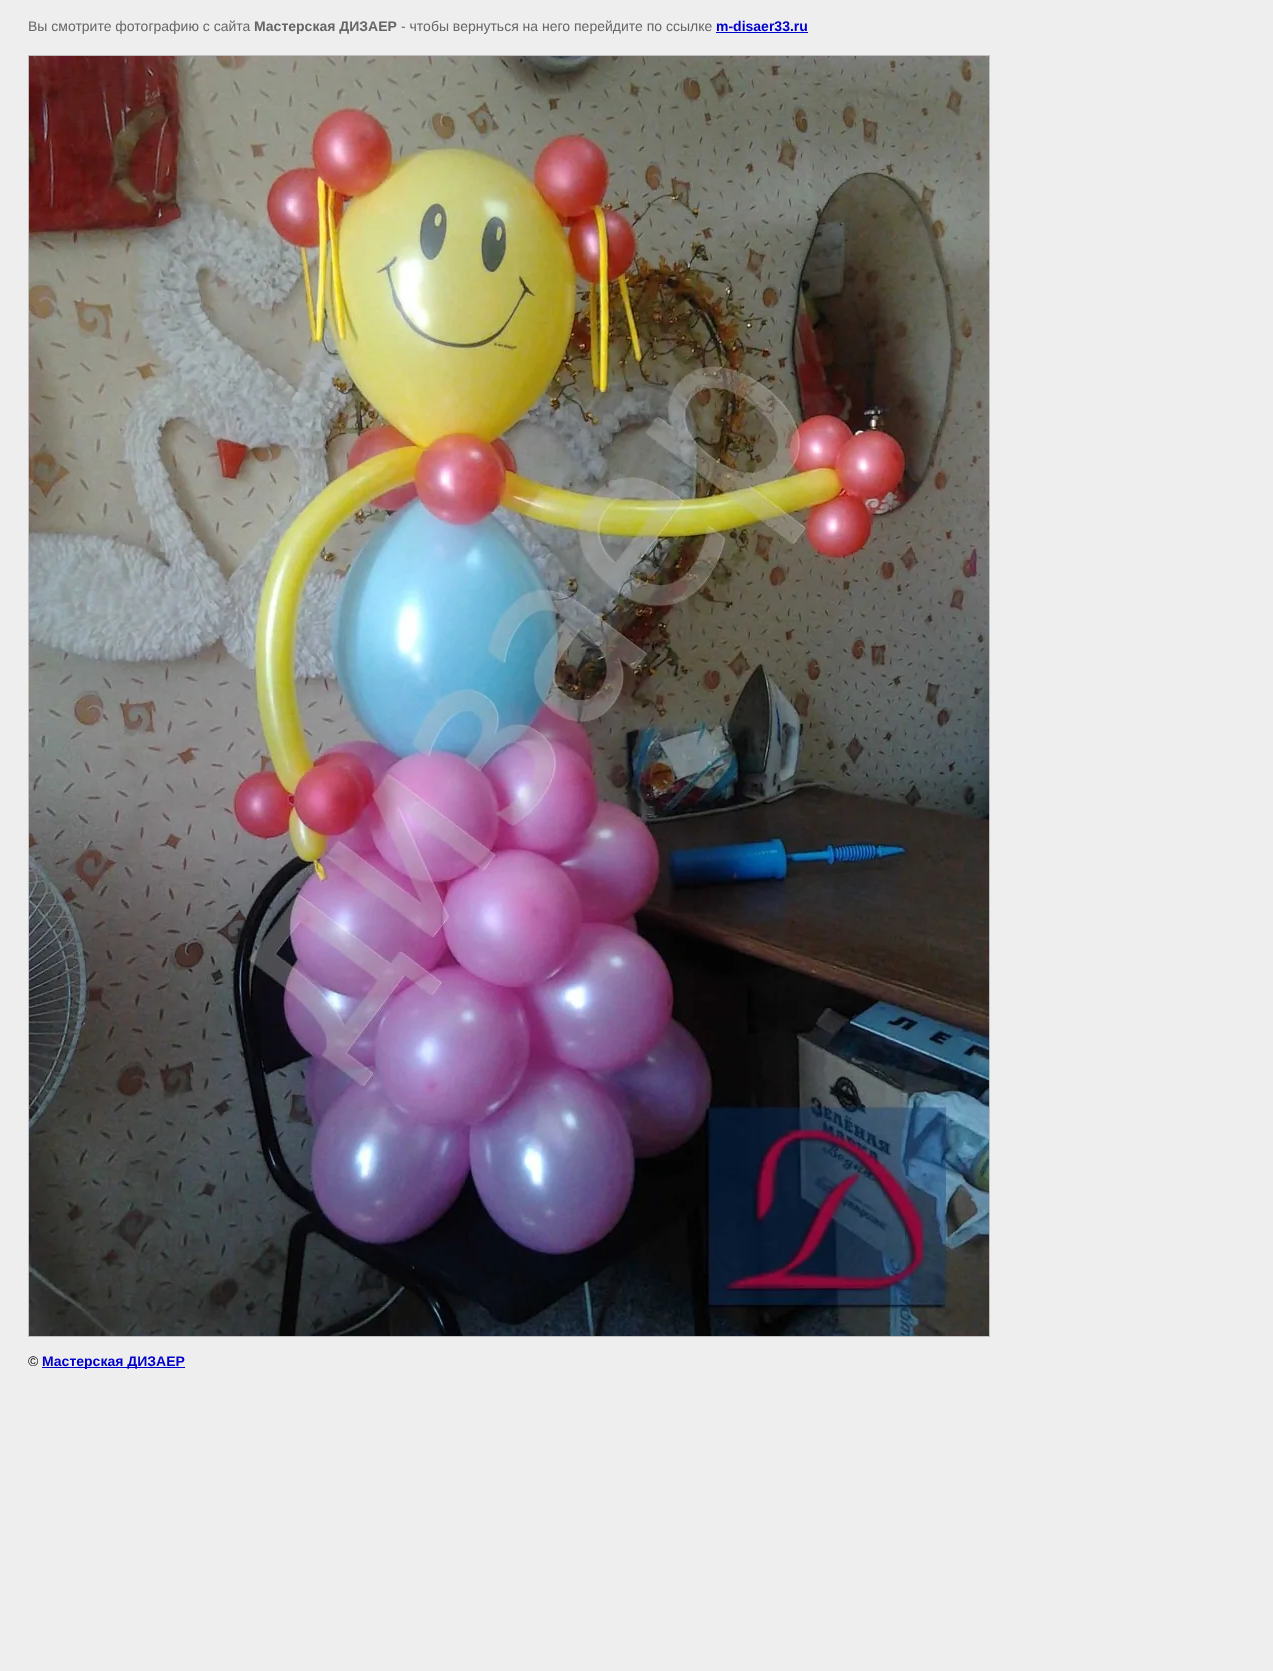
<!DOCTYPE html>
<meta charset="utf-8">
<style>body { margin: 0 } canvas { display: block }</style>
<canvas id="canvas" width="1273" height="1671"></canvas>
<img id="img1" src="img_01.png" hidden>
<script>
window.onload = function () {
	const canvas = document.getElementById("canvas");
	const ctx = canvas.getContext("2d");
	ctx.miterLimit = 4;
	ctx.fontKerning = "normal";
	function txt(s, x, y) {
		ctx.fillText(s, x, y);
	}
	function fill(x, y, w, h) {
		ctx.fillRect(x, y, w, h);
	}
	function img(id, x, y, w, h) {
		ctx.drawImage(document.getElementById(id), x, y, w, h);
	}

	ctx.fillStyle = "#EEEEEE";
	fill(0, 0, 1273, 1671);
	ctx.fillStyle = "#0000CC";
	fill(716, 32, 92, 1);
	ctx.strokeStyle = "#C0C0C0";
	ctx.strokeRect(28.5, 55.5, 961, 1281);
	img("img1", 29, 56, 960, 1280);
	fill(42, 1367, 143, 1);
	ctx.font = "14px Liberation Sans";
	ctx.fillStyle = "#666666";
	txt("Вы смотрите фотографию с сайта", 28, 31);
	ctx.font = "bold 14px Liberation Sans";
	txt("Мастерская ДИЗАЕР", 254, 31);
	ctx.font = "14px Liberation Sans";
	txt("- чтобы вернуться на него перейдите по ссылке", 401, 31);
	ctx.font = "bold 14px Liberation Sans";
	ctx.fillStyle = "#0000CC";
	txt("m-disaer33.ru", 716, 31);
	ctx.font = "14px Liberation Sans";
	ctx.fillStyle = "#000000";
	txt("©", 28, 1366);
	ctx.font = "bold 14px Liberation Sans";
	ctx.fillStyle = "#0000CC";
	txt("Мастерская ДИЗАЕР", 42, 1366);
};
</script>
